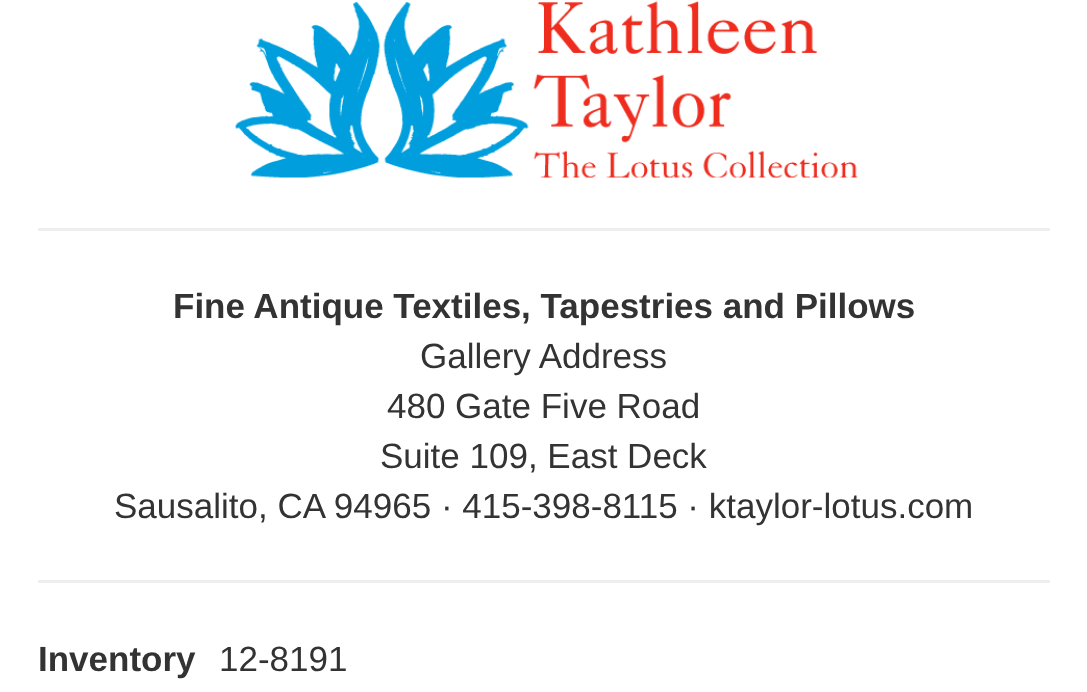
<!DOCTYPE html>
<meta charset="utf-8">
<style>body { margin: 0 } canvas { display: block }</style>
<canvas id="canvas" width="1087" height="692"></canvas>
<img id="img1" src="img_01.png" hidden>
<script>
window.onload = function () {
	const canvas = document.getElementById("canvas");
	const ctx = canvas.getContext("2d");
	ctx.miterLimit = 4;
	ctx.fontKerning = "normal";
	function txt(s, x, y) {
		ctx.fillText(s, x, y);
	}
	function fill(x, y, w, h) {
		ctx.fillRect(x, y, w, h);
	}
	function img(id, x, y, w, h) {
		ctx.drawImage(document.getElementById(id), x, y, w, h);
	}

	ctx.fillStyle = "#FFFFFF";
	fill(0, 0, 1087, 692);
	img("img1", 235, 1, 623, 177);
	ctx.fillStyle = "#EEEEEE";
	fill(38, 228, 1012, 3);
	fill(38, 580, 1012, 3);
	ctx.font = "bold 35px Liberation Sans";
	ctx.fillStyle = "#333333";
	txt("Fine Antique Textiles, Tapestries and Pillows", 173, 318);
	ctx.font = "35px Liberation Sans";
	txt("Gallery Address", 420, 368);
	txt("480 Gate Five Road", 387, 418);
	txt("Suite 109, East Deck", 380, 468);
	txt("Sausalito, CA 94965 · 415-398-8115 · ktaylor-lotus.com", 114, 518);
	ctx.font = "bold 35px Liberation Sans";
	txt("Inventory", 38, 671);
	ctx.font = "35px Liberation Sans";
	txt("12-8191", 219, 671);
};
</script>
